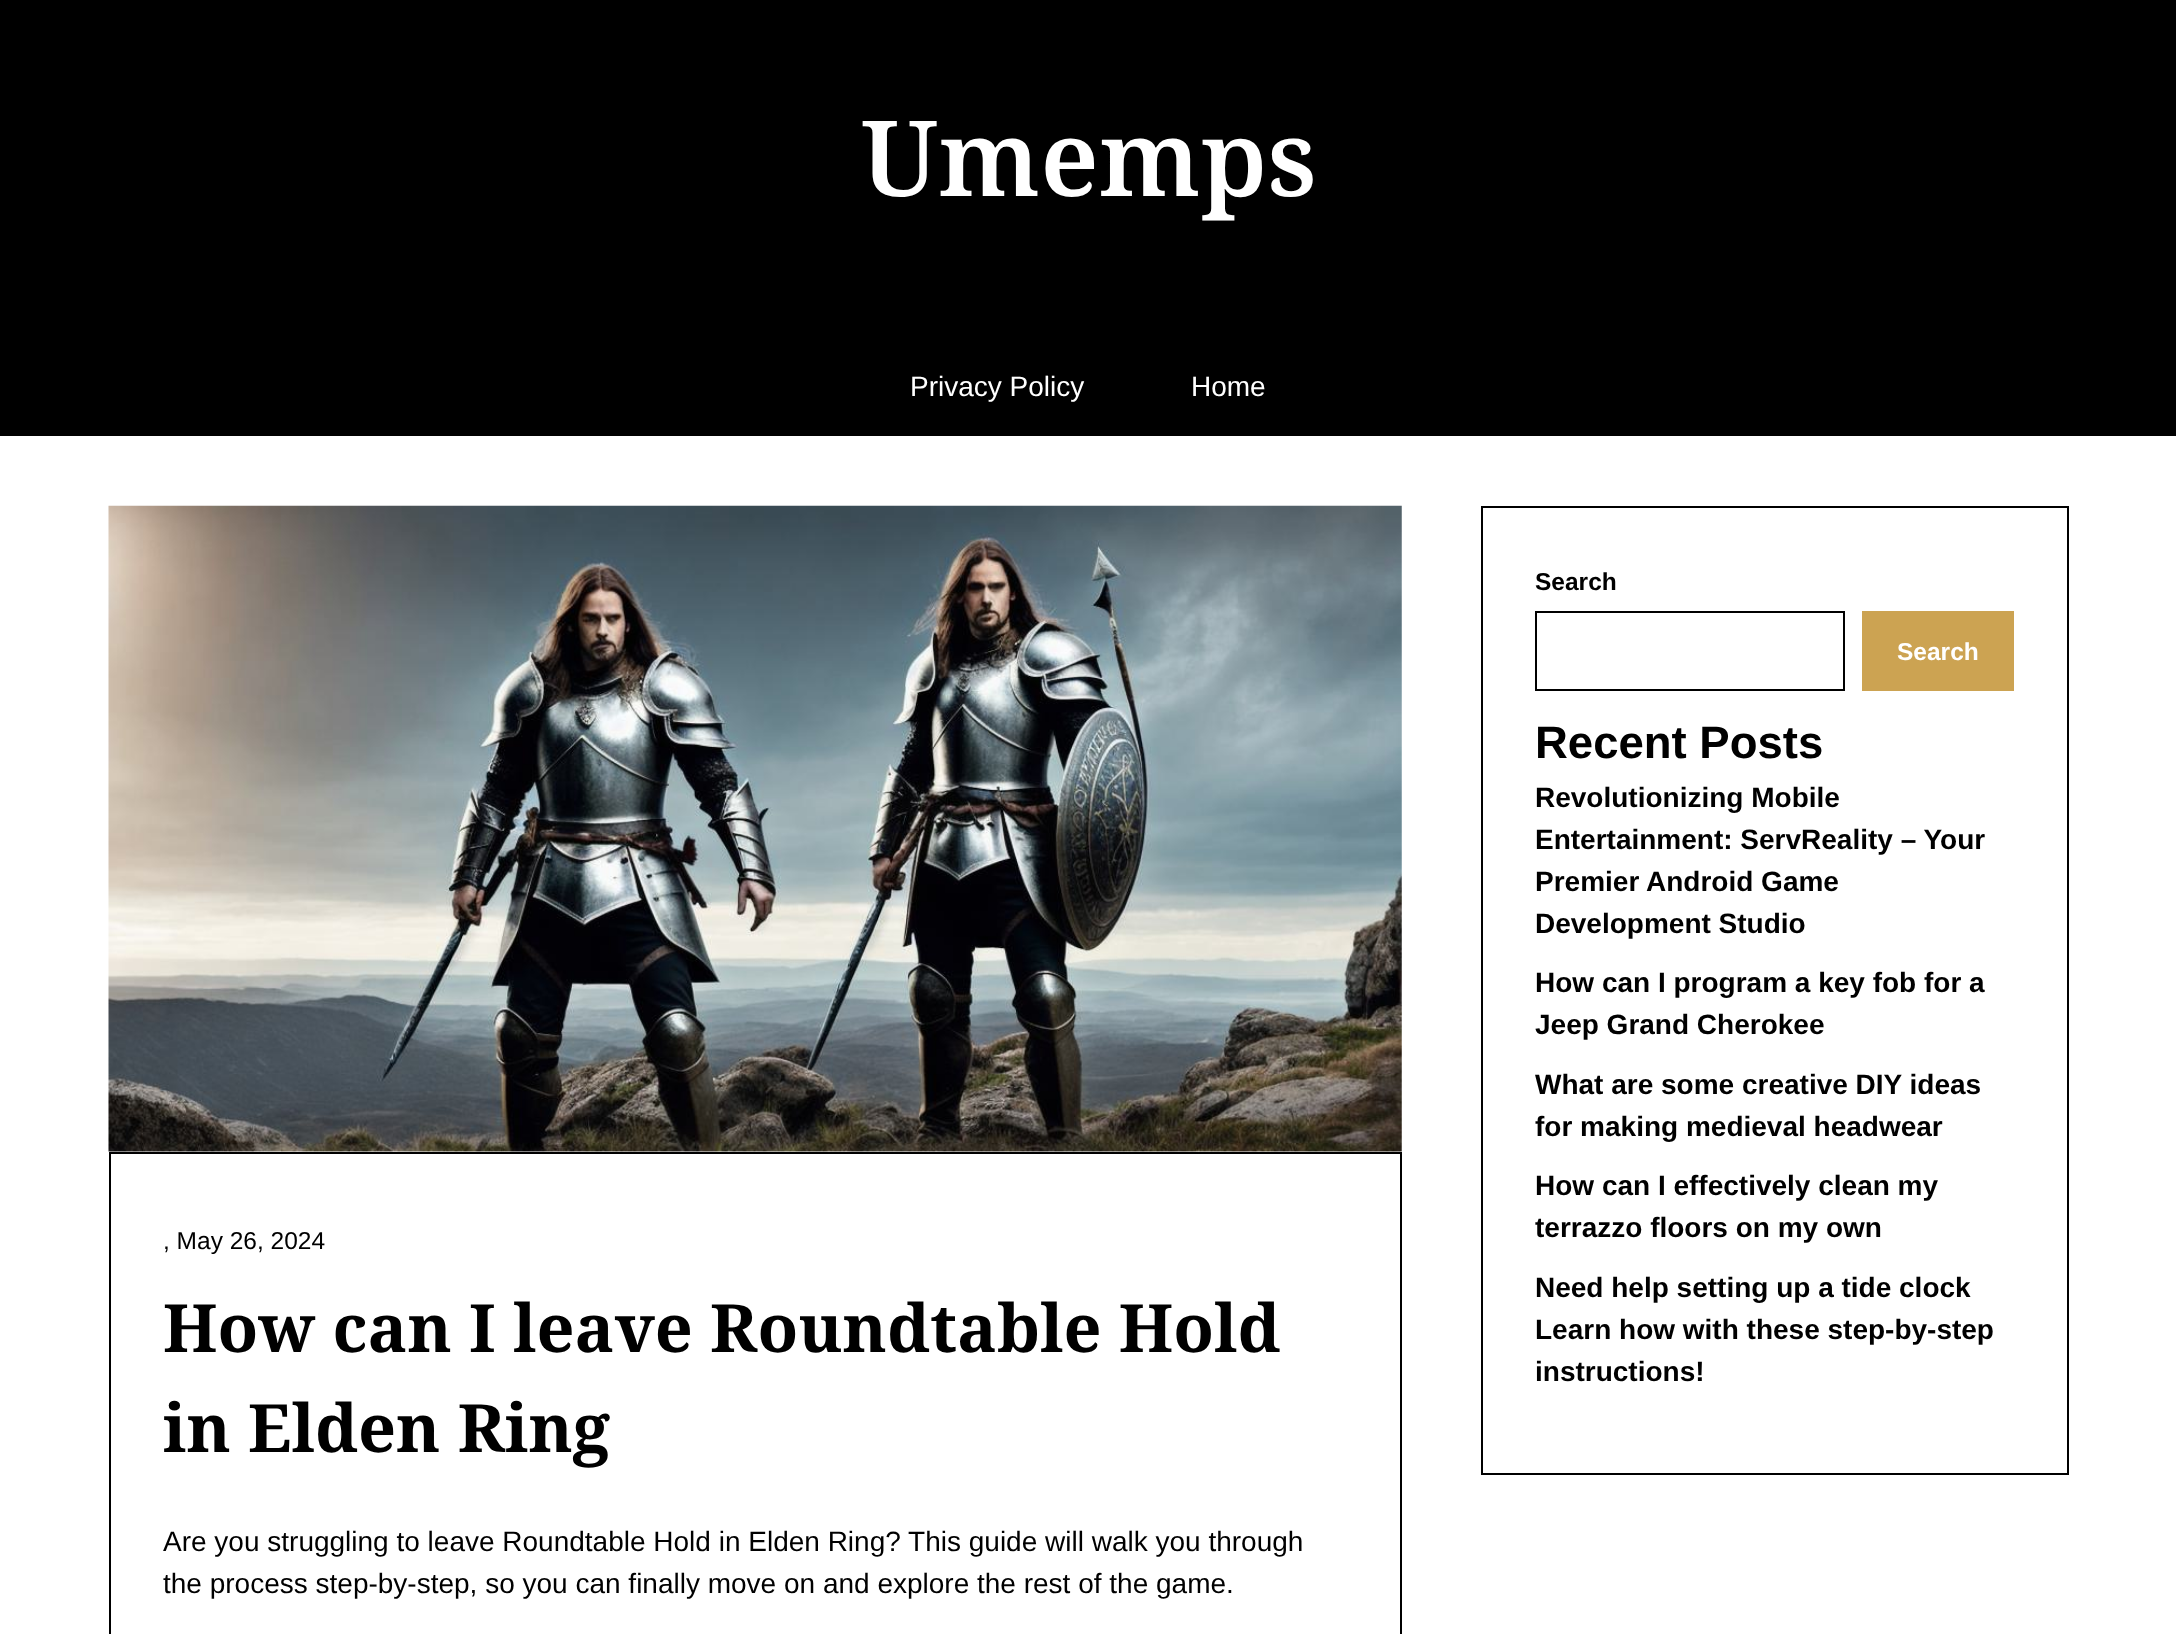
<!DOCTYPE html>
<meta charset="utf-8">
<style>body { margin: 0 } canvas { display: block }</style>
<canvas id="canvas" width="2176" height="1634"></canvas>
<img id="img1" src="img_01.png" hidden>
<script>
window.onload = function () {
	const canvas = document.getElementById("canvas");
	const ctx = canvas.getContext("2d");
	ctx.miterLimit = 4;
	ctx.fontKerning = "normal";
	function txt(s, x, y) {
		ctx.fillText(s, x, y);
	}
	function fill(x, y, w, h) {
		ctx.fillRect(x, y, w, h);
	}
	function img(id, x, y, w, h) {
		ctx.drawImage(document.getElementById(id), x, y, w, h);
	}

	ctx.fillStyle = "#FFFFFF";
	fill(0, 0, 2176, 1634);
	ctx.fillStyle = "#000000";
	fill(0, 0, 2176, 436);
	img("img1", 108, 505, 1294, 647);
	ctx.strokeStyle = "#000000";
	ctx.lineWidth = 2;
	ctx.strokeRect(110, 1153, 1291, 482);
	ctx.strokeRect(1482, 507, 586, 967);
	ctx.strokeRect(1536, 612, 308, 78);
	ctx.fillStyle = "#CCA352";
	fill(1862, 611, 152, 80);
	ctx.font = "600 105px Noto Serif";
	ctx.fillStyle = "#FFFFFF";
	txt("Umemps", 861, 196);
	ctx.font = "28px Liberation Sans";
	txt("Privacy Policy", 910, 396);
	txt("Home", 1191, 396);
	ctx.font = "24.5px Liberation Sans";
	ctx.fillStyle = "#000000";
	txt(", May 26, 2024", 163, 1249);
	ctx.font = "bold 66.5px Noto Serif";
	txt("How can I leave Roundtable Hold", 163, 1352);
	txt("in Elden Ring", 163, 1452);
	ctx.font = "28px Liberation Sans";
	txt("Are you struggling to leave Roundtable Hold in Elden Ring? This guide will walk you through", 163, 1551);
	txt("the process step-by-step, so you can finally move on and explore the rest of the game.", 163, 1593);
	ctx.font = "bold 24.5px Liberation Sans";
	txt("Search", 1535, 590);
	ctx.fillStyle = "#FFFFFF";
	txt("Search", 1897, 660);
	ctx.font = "bold 45.5px Liberation Sans";
	ctx.fillStyle = "#000000";
	txt("Recent Posts", 1535, 758);
	ctx.font = "bold 28px Liberation Sans";
	txt("Revolutionizing Mobile", 1535, 807);
	txt("Entertainment: ServReality – Your", 1535, 849);
	txt("Premier Android Game", 1535, 891);
	txt("Development Studio", 1535, 933);
	txt("How can I program a key fob for a", 1535, 992);
	txt("Jeep Grand Cherokee", 1535, 1034);
	txt("What are some creative DIY ideas", 1535, 1094);
	txt("for making medieval headwear", 1535, 1136);
	txt("How can I effectively clean my", 1535, 1195);
	txt("terrazzo floors on my own", 1535, 1237);
	txt("Need help setting up a tide clock", 1535, 1297);
	txt("Learn how with these step-by-step", 1535, 1339);
	txt("instructions!", 1535, 1381);
};
</script>
